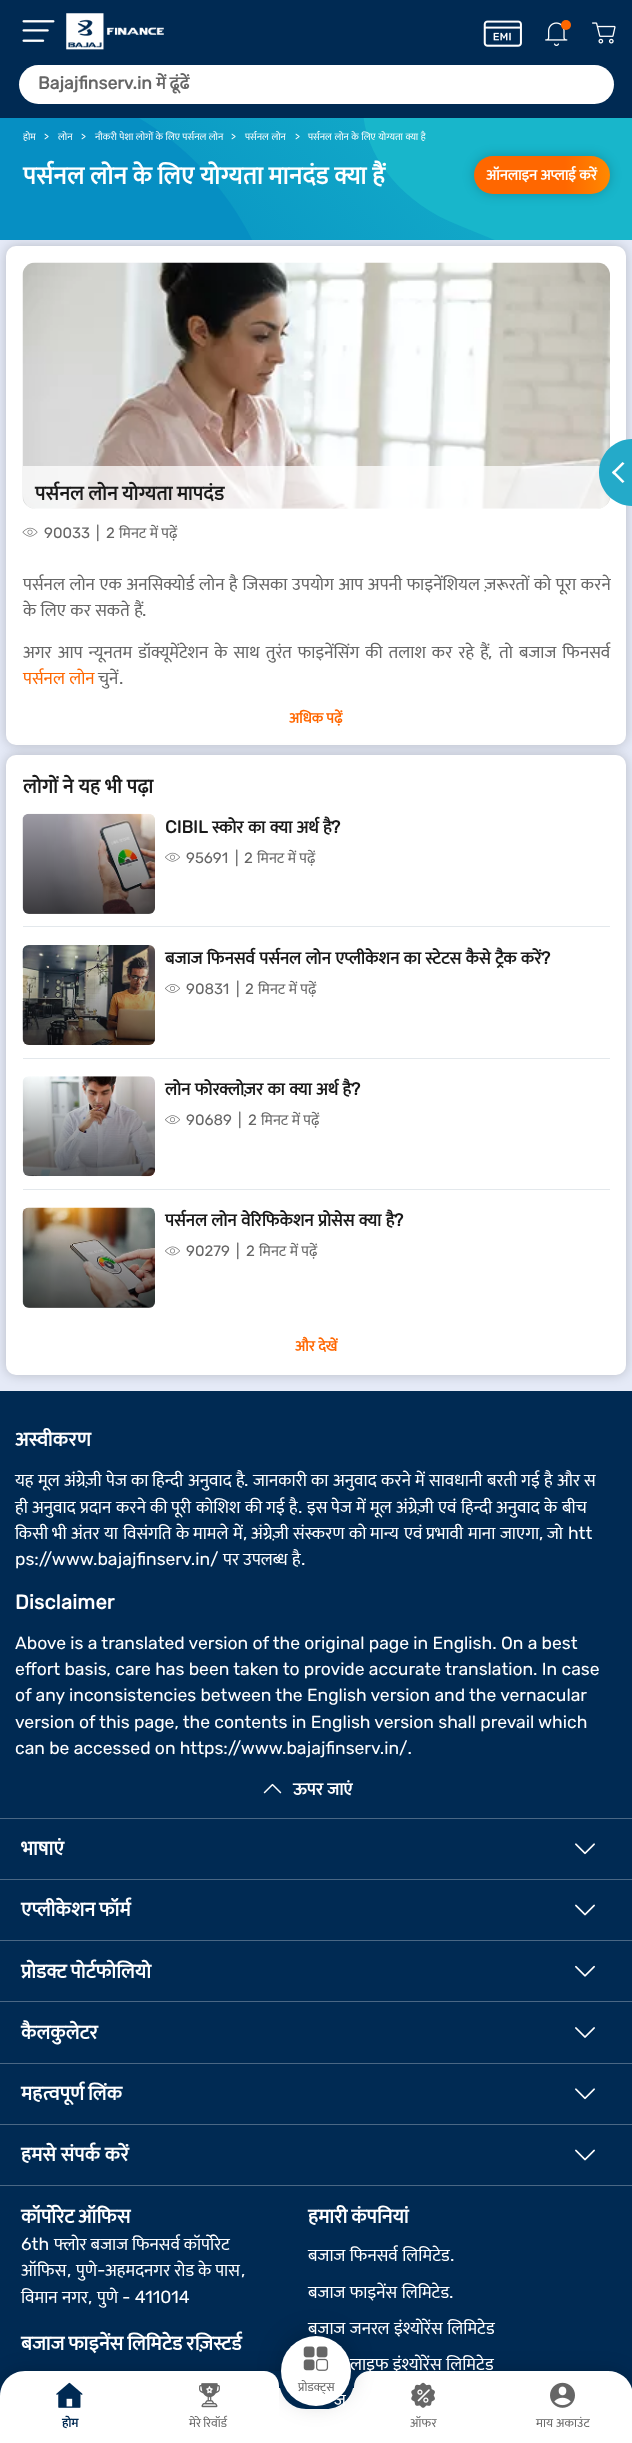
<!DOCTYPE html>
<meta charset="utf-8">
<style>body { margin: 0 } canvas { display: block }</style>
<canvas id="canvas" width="632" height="2443"></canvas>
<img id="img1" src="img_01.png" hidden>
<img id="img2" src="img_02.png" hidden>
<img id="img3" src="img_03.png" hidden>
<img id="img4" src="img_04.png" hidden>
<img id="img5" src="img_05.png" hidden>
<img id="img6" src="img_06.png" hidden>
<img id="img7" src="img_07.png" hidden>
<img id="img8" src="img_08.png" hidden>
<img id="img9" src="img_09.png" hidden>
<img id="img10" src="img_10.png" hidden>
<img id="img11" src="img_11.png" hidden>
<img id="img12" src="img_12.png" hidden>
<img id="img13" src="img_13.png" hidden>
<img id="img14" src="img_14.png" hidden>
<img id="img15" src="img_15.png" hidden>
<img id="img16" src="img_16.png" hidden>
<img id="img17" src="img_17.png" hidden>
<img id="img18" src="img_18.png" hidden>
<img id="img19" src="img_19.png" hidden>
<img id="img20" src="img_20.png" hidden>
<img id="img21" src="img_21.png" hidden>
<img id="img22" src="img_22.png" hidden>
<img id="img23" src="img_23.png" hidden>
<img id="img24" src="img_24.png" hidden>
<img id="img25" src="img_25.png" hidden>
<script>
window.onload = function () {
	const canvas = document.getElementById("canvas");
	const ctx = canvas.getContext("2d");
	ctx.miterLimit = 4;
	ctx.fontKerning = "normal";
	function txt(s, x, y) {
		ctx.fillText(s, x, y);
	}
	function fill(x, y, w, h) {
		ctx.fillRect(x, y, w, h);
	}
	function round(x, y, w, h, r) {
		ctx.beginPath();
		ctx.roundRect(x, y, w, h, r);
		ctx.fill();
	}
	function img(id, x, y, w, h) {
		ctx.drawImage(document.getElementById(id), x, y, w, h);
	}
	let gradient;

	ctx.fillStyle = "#E5EAF7";
	fill(0, 0, 632, 2443);
	ctx.fillStyle = "#002A53";
	fill(0, 0, 632, 118);
	img("img1", 22, 20, 33, 22);
	img("img2", 66, 13, 98, 37);
	img("img3", 483, 20, 39, 27);
	img("img4", 545, 22, 23, 24);
	ctx.fillStyle = "#FF6700";
	ctx.beginPath();
	ctx.arc(566, 25, 5, 0, Math.PI * 2);
	ctx.fill();
	img("img5", 592, 22, 24, 22);
	ctx.fillStyle = "#FFFFFF";
	round(19, 65, 595, 39, 19.5);
	ctx.fillStyle = "rgba(0, 0, 0, 0.2)";
	ctx.filter = "blur(6px)";
	ctx.beginPath();
	ctx.roundRect(6, 246, 620, 499, 10);
	ctx.fill();
	ctx.filter = "none";
	ctx.fillStyle = "#FFFFFF";
	round(6, 246, 620, 499, 10);
	ctx.fillStyle = "rgba(0, 0, 0, 0.2)";
	ctx.filter = "blur(6px)";
	ctx.beginPath();
	ctx.roundRect(6, 755, 620, 620, 10);
	ctx.fill();
	ctx.filter = "none";
	ctx.fillStyle = "#002A53";
	fill(0, 1391, 632, 1018);
	ctx.save();
	ctx.beginPath();
	ctx.moveTo(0, 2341);
	ctx.lineTo(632, 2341);
	ctx.lineTo(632, 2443);
	ctx.lineTo(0, 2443);
	ctx.closePath();
	ctx.moveTo(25, 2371);
	ctx.lineTo(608, 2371);
	ctx.bezierCurveTo(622, 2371, 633, 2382, 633, 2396);
	ctx.lineTo(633, 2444);
	ctx.lineTo(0, 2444);
	ctx.lineTo(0, 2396);
	ctx.bezierCurveTo(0, 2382, 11, 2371, 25, 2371);
	ctx.closePath();
	ctx.clip("evenodd");
	ctx.fillStyle = "rgba(0, 0, 0, 0.2)";
	ctx.filter = "blur(9.5px)";
	ctx.beginPath();
	ctx.roundRect(0, 2371, 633, 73, 25);
	ctx.fill();
	ctx.filter = "none";
	ctx.restore();
	ctx.fillStyle = "#FFFFFF";
	ctx.beginPath();
	ctx.moveTo(370, 2371);
	ctx.lineTo(608, 2371);
	ctx.bezierCurveTo(622, 2371, 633, 2382, 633, 2396);
	ctx.lineTo(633, 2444);
	ctx.lineTo(354, 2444);
	ctx.lineTo(354, 2387);
	ctx.bezierCurveTo(354, 2378, 361, 2371, 370, 2371);
	ctx.closePath();
	ctx.fill();
	ctx.beginPath();
	ctx.moveTo(248, 2388);
	ctx.lineTo(248, 2419);
	ctx.bezierCurveTo(248, 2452, 274, 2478, 307, 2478);
	ctx.lineTo(326, 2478);
	ctx.bezierCurveTo(359, 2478, 385, 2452, 385, 2419);
	ctx.lineTo(385, 2388);
	ctx.lineTo(353, 2388);
	ctx.bezierCurveTo(350, 2400, 339, 2409, 326, 2409);
	ctx.lineTo(306, 2409);
	ctx.bezierCurveTo(293, 2409, 283, 2400, 280, 2388);
	ctx.closePath();
	ctx.fill();
	ctx.fillStyle = "rgba(0, 0, 0, 0.2)";
	ctx.filter = "blur(12.5px)";
	ctx.beginPath();
	ctx.roundRect(281, 2333, 70, 70, 35);
	ctx.fill();
	ctx.filter = "none";
	ctx.fillStyle = "#FFFFFF";
	ctx.beginPath();
	ctx.arc(316, 2371, 35, 0, Math.PI * 2);
	ctx.fill();
	img("img6", 303, 2346, 26, 25);
	ctx.beginPath();
	ctx.moveTo(25, 2371);
	ctx.lineTo(264, 2371);
	ctx.bezierCurveTo(272.5, 2371, 279, 2377.5, 279, 2386);
	ctx.lineTo(279, 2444);
	ctx.lineTo(0, 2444);
	ctx.lineTo(0, 2396);
	ctx.bezierCurveTo(0, 2382, 11, 2371, 25, 2371);
	ctx.closePath();
	ctx.fill();
	img("img7", 56, 2382, 27, 26);
	img("img8", 199, 2383, 21, 25);
	img("img9", 411, 2382, 24, 26);
	img("img10", 550, 2382, 25, 26);
	gradient = ctx.createLinearGradient(128, 368, 505, -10);
	gradient.addColorStop(0, "#058CC2");
	gradient.addColorStop(1, "#18B6CB");
	ctx.fillStyle = gradient;
	fill(139, 118, 356, 122);
	ctx.save();
	ctx.beginPath();
	ctx.rect(0, 118, 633, 122);
	ctx.clip();
	ctx.fillStyle = "#068FC3";
	ctx.beginPath();
	ctx.moveTo(0, 80);
	ctx.bezierCurveTo(157, 80, 285, 214, 285, 380);
	ctx.lineTo(285, 680);
	ctx.lineTo(0, 680);
	ctx.closePath();
	ctx.fill();
	ctx.fillStyle = "#18B6CB";
	ctx.beginPath();
	ctx.moveTo(628, 71);
	ctx.lineTo(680, 92);
	ctx.bezierCurveTo(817, 148, 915, 226, 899, 266);
	ctx.bezierCurveTo(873, 331, 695, 321, 502, 243);
	ctx.lineTo(458, 225);
	ctx.bezierCurveTo(387, 197, 347, 130, 369, 76);
	ctx.lineTo(380, 48);
	ctx.bezierCurveTo(395, 12, 506, 22, 628, 71);
	ctx.closePath();
	ctx.fill();
	ctx.restore();
	ctx.fillStyle = "rgba(0, 0, 0, 0.2)";
	ctx.filter = "blur(6px)";
	ctx.beginPath();
	ctx.roundRect(474, 156, 136, 38, 19);
	ctx.fill();
	ctx.filter = "none";
	gradient = ctx.createLinearGradient(474, 175, 610, 175);
	gradient.addColorStop(0.67, "#FF6700");
	gradient.addColorStop(1, "#FF8900");
	ctx.fillStyle = gradient;
	round(474, 156, 136, 38, 19);
	img("img11", 22, 262, 588, 247);
	ctx.fillStyle = "rgba(255, 255, 255, 0.74)";
	ctx.beginPath();
	ctx.roundRect(23, 466, 587, 43, [0, 0, 13, 13]);
	ctx.fill();
	ctx.fillStyle = "#24AAC9";
	ctx.beginPath();
	ctx.moveTo(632.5, 439);
	ctx.lineTo(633, 439);
	ctx.lineTo(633, 506);
	ctx.lineTo(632.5, 506);
	ctx.bezierCurveTo(614, 506, 599, 491, 599, 472.5);
	ctx.bezierCurveTo(599, 454, 614, 439, 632.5, 439);
	ctx.closePath();
	ctx.fill();
	ctx.fillStyle = "#FFFFFF";
	ctx.beginPath();
	ctx.moveTo(612, 472.5);
	ctx.lineTo(622.5, 462);
	ctx.lineTo(624.5, 463.5);
	ctx.lineTo(613.5, 474.5);
	ctx.closePath();
	ctx.fill();
	ctx.beginPath();
	ctx.moveTo(612, 472.5);
	ctx.lineTo(613.5, 470.5);
	ctx.lineTo(624.5, 481.5);
	ctx.lineTo(622.5, 483);
	ctx.closePath();
	ctx.fill();
	img("img12", 22, 527, 16, 10);
	round(6, 755, 620, 620, 10);
	img("img13", 22, 813, 133, 101);
	gradient = ctx.createLinearGradient(89, 814, 89, 914);
	gradient.addColorStop(0, "rgba(0, 0, 0, 0)");
	gradient.addColorStop(1, "rgba(0, 0, 0, 0.63)");
	ctx.fillStyle = gradient;
	round(23, 814, 132, 100, 6);
	img("img14", 165, 852, 15, 10);
	ctx.fillStyle = "#E3E8EC";
	fill(23, 926, 587, 1);
	img("img15", 22, 945, 133, 100);
	gradient = ctx.createLinearGradient(89, 945, 89, 1045);
	gradient.addColorStop(0, "rgba(0, 0, 0, 0)");
	gradient.addColorStop(1, "rgba(0, 0, 0, 0.63)");
	ctx.fillStyle = gradient;
	round(23, 945, 132, 100, 6);
	img("img16", 165, 984, 15, 9);
	ctx.fillStyle = "#E3E8EC";
	fill(23, 1058, 587, 1);
	img("img17", 22, 1076, 133, 101);
	gradient = ctx.createLinearGradient(89, 1076, 89, 1176);
	gradient.addColorStop(0, "rgba(0, 0, 0, 0)");
	gradient.addColorStop(1, "rgba(0, 0, 0, 0.63)");
	ctx.fillStyle = gradient;
	round(23, 1076, 132, 100, 6);
	img("img18", 165, 1115, 15, 10);
	ctx.fillStyle = "#E3E8EC";
	fill(23, 1189, 587, 1);
	img("img19", 22, 1207, 133, 101);
	gradient = ctx.createLinearGradient(89, 1208, 89, 1308);
	gradient.addColorStop(0, "rgba(0, 0, 0, 0)");
	gradient.addColorStop(1, "rgba(0, 0, 0, 0.63)");
	ctx.fillStyle = gradient;
	round(23, 1208, 132, 100, 6);
	img("img20", 165, 1246, 15, 10);
	ctx.fillStyle = "#4A6784";
	fill(0, 1818, 632, 1);
	img("img21", 263, 1783, 19, 11);
	fill(0, 1879, 632, 1);
	img("img22", 575, 1843, 20, 12);
	fill(0, 1940, 632, 1);
	img("img23", 575, 1904, 20, 12);
	fill(0, 2001, 632, 1);
	img("img24", 575, 1965, 20, 12);
	fill(0, 2063, 632, 1);
	img("img25", 575, 2027, 20, 11);
	fill(0, 2124, 632, 1);
	img("img22", 575, 2088, 20, 12);
	fill(0, 2185, 632, 1);
	img("img23", 575, 2149, 20, 12);
	ctx.font = "bold 17.5px Rubik";
	ctx.fillStyle = "#666666";
	txt("Bajajfinserv.in", 38, 89);
	ctx.font = "bold 17.5px Mukta";
	txt("में ढूंढें", 156, 89);
	ctx.letterSpacing = "0.1px";
	ctx.font = "12.5px Mukta";
	txt("प्रोडक्ट्स", 298, 2391);
	ctx.font = "bold 12.5px Mukta";
	ctx.fillStyle = "#002A53";
	txt("होम", 62, 2427);
	ctx.wordSpacing = "-1px";
	ctx.font = "12.5px Mukta";
	ctx.fillStyle = "#666666";
	txt("मेरे रिवॉर्ड", 189, 2427);
	ctx.wordSpacing = "0px";
	txt("ऑफर", 410, 2427);
	txt("माय अकाउंट", 536, 2427);
	ctx.save();
	ctx.beginPath();
	ctx.rect(23, 128, 587, 18);
	ctx.clip();
	ctx.letterSpacing = "0px";
	ctx.font = "10px Mukta";
	ctx.fillStyle = "#FFFFFF";
	txt("होम", 23, 140);
	ctx.restore();
	ctx.letterSpacing = "0px";
	ctx.font = "10px Rubik";
	ctx.fillStyle = "#FFFFFF";
	txt(">", 44, 140);
	ctx.font = "10px Mukta";
	txt("लोन", 58, 140);
	ctx.font = "10px Rubik";
	txt(">", 81, 140);
	ctx.wordSpacing = "0.25px";
	ctx.font = "10px Mukta";
	txt("नौकरी पेशा लोगों के लिए पर्सनल लोन", 95, 140);
	ctx.wordSpacing = "0px";
	ctx.font = "10px Rubik";
	txt(">", 231, 140);
	ctx.wordSpacing = "0.25px";
	ctx.font = "10px Mukta";
	txt("पर्सनल लोन", 245, 140);
	ctx.wordSpacing = "0px";
	ctx.font = "10px Rubik";
	txt(">", 295, 140);
	ctx.wordSpacing = "0.25px";
	ctx.font = "10px Mukta";
	txt("पर्सनल लोन के लिए योग्यता क्या है", 308, 140);
	ctx.letterSpacing = "0.45px";
	ctx.wordSpacing = "-0.5px";
	ctx.font = "bold 25px Mukta";
	txt("पर्सनल लोन के लिए योग्यता मानदंड क्या हैं", 23, 184);
	ctx.letterSpacing = "0px";
	ctx.wordSpacing = "0px";
	ctx.font = "bold 15px Mukta";
	txt("ऑनलाइन अप्लाई करें", 486, 180);
	ctx.letterSpacing = "0.3px";
	ctx.wordSpacing = "-0.5px";
	ctx.font = "bold 20px Mukta";
	ctx.fillStyle = "#1A1A1A";
	txt("पर्सनल लोन योग्यता मापदंड", 35, 500);
	ctx.letterSpacing = "0px";
	ctx.wordSpacing = "0px";
	ctx.font = "15px Rubik";
	ctx.fillStyle = "#666666";
	txt("90033", 44, 538);
	txt("|", 96, 538);
	txt("2", 106, 538);
	ctx.font = "15px Mukta";
	txt("मिनट में पढ़ें", 119, 538);
	ctx.wordSpacing = "0.75px";
	ctx.font = "17.5px Mukta";
	txt("पर्सनल लोन एक अनसिक्योर्ड लोन है जिसका उपयोग आप अपनी फाइनेंशियल ज़रूरतों को पूरा करने", 23, 590);
	ctx.wordSpacing = "0.5px";
	txt("के लिए कर सकते हैं", 23, 616);
	ctx.wordSpacing = "0px";
	ctx.font = "17.5px Rubik";
	txt(".", 142, 616);
	ctx.wordSpacing = "2.1px";
	ctx.font = "17.5px Mukta";
	txt("अगर आप न्यूनतम डॉक्यूमेंटेशन के साथ तुरंत फाइनेंसिंग की तलाश कर रहे हैं", 23, 658);
	ctx.wordSpacing = "0px";
	ctx.font = "17.5px Rubik";
	txt(",", 488, 658);
	ctx.wordSpacing = "2.1px";
	ctx.font = "17.5px Mukta";
	txt("तो बजाज फिनसर्व", 499, 658);
	ctx.wordSpacing = "0.5px";
	ctx.fillStyle = "#FF6700";
	txt("पर्सनल लोन", 23, 684);
	ctx.wordSpacing = "0px";
	ctx.fillStyle = "#666666";
	txt("चुनें", 98, 684);
	ctx.font = "17.5px Rubik";
	txt(".", 119, 684);
	ctx.font = "bold 15px Mukta";
	ctx.fillStyle = "#FF6700";
	txt("अधिक पढ़ें", 289, 723);
	ctx.save();
	ctx.beginPath();
	ctx.rect(23, 771, 587, 30);
	ctx.clip();
	ctx.letterSpacing = "0.3px";
	ctx.font = "bold 20px Mukta";
	ctx.fillStyle = "#1A1A1A";
	txt("लोगों ने यह भी पढ़ा", 23, 793);
	ctx.restore();
	ctx.font = "bold 17.5px Rubik";
	ctx.fillStyle = "#1A1A1A";
	txt("CIBIL", 165, 833);
	ctx.wordSpacing = "0.5px";
	ctx.font = "bold 17.5px Mukta";
	txt("स्कोर का क्या अर्थ है", 212, 833);
	ctx.wordSpacing = "0px";
	ctx.font = "bold 17.5px Rubik";
	txt("?", 331, 833);
	ctx.font = "15px Rubik";
	ctx.fillStyle = "#666666";
	txt("95691", 186, 863);
	txt("|", 235, 863);
	txt("2", 244, 863);
	ctx.font = "15px Mukta";
	txt("मिनट में पढ़ें", 257, 863);
	ctx.wordSpacing = "0.5px";
	ctx.font = "bold 17.5px Mukta";
	ctx.fillStyle = "#1A1A1A";
	txt("बजाज फिनसर्व पर्सनल लोन एप्लीकेशन का स्टेटस कैसे ट्रैक करें", 165, 964);
	ctx.wordSpacing = "0px";
	ctx.font = "bold 17.5px Rubik";
	txt("?", 541, 964);
	ctx.font = "15px Rubik";
	ctx.fillStyle = "#666666";
	txt("90831", 186, 994);
	txt("|", 236, 994);
	txt("2", 245, 994);
	ctx.font = "15px Mukta";
	txt("मिनट में पढ़ें", 258, 994);
	ctx.wordSpacing = "0.5px";
	ctx.font = "bold 17.5px Mukta";
	ctx.fillStyle = "#1A1A1A";
	txt("लोन फोरक्लोज़र का क्या अर्थ है", 165, 1095);
	ctx.wordSpacing = "0px";
	ctx.font = "bold 17.5px Rubik";
	txt("?", 351, 1095);
	ctx.font = "15px Rubik";
	ctx.fillStyle = "#666666";
	txt("90689", 186, 1125);
	txt("|", 238, 1125);
	txt("2", 248, 1125);
	ctx.font = "15px Mukta";
	txt("मिनट में पढ़ें", 261, 1125);
	ctx.wordSpacing = "0.5px";
	ctx.font = "bold 17.5px Mukta";
	ctx.fillStyle = "#1A1A1A";
	txt("पर्सनल लोन वेरिफिकेशन प्रोसेस क्या है", 165, 1226);
	ctx.wordSpacing = "0px";
	ctx.font = "bold 17.5px Rubik";
	txt("?", 394, 1226);
	ctx.font = "15px Rubik";
	ctx.fillStyle = "#666666";
	txt("90279", 186, 1256);
	txt("|", 236, 1256);
	txt("2", 246, 1256);
	ctx.font = "15px Mukta";
	txt("मिनट में पढ़ें", 259, 1256);
	ctx.font = "bold 15px Mukta";
	ctx.fillStyle = "#FF6700";
	txt("और देखें", 295, 1351);
	ctx.letterSpacing = "0.25px";
	ctx.font = "bold 20px Mukta";
	ctx.fillStyle = "#FFFFFF";
	txt("अस्वीकरण", 15, 1446);
	ctx.letterSpacing = "0px";
	ctx.font = "17.5px Mukta";
	txt("यह", 15, 1486);
	txt("मूल", 38, 1486);
	txt("अंग्रेज़ी", 64, 1486);
	txt("पेज", 106, 1486);
	txt("का", 131, 1486);
	txt("हिन्दी", 152, 1486);
	txt("अनुवाद", 188, 1486);
	txt("है", 236, 1486);
	ctx.font = "17.5px Rubik";
	txt(".", 244, 1486);
	ctx.font = "17.5px Mukta";
	txt("जानकारी", 253, 1486);
	txt("का", 311, 1486);
	txt("अनुवाद", 333, 1486);
	txt("करने", 381, 1486);
	txt("में", 415, 1486);
	txt("सावधानी", 429, 1486);
	txt("बरती", 487, 1486);
	txt("गई", 521, 1486);
	txt("है", 544, 1486);
	txt("और", 557, 1486);
	txt("स", 584, 1486);
	txt("ही", 15, 1513);
	txt("अनुवाद", 32, 1513);
	txt("प्रदान", 80, 1513);
	txt("करने", 116, 1513);
	txt("की", 150, 1513);
	txt("पूरी", 171, 1513);
	txt("कोशिश", 196, 1513);
	txt("की", 245, 1513);
	txt("गई", 266, 1513);
	txt("है", 289, 1513);
	ctx.font = "17.5px Rubik";
	txt(".", 298, 1513);
	ctx.font = "17.5px Mukta";
	txt("इस", 307, 1513);
	txt("पेज", 331, 1513);
	txt("में", 356, 1513);
	txt("मूल", 370, 1513);
	txt("अंग्रेज़ी", 396, 1513);
	txt("एवं", 438, 1513);
	txt("हिन्दी", 461, 1513);
	txt("अनुवाद", 496, 1513);
	txt("के", 544, 1513);
	txt("बीच", 562, 1513);
	txt("किसी", 15, 1539);
	txt("भी", 52, 1539);
	txt("अंतर", 71, 1539);
	txt("या", 104, 1539);
	txt("विसंगति", 123, 1539);
	txt("के", 176, 1539);
	txt("मामले", 193, 1539);
	txt("में", 233, 1539);
	ctx.font = "17.5px Rubik";
	txt(",", 243, 1539);
	ctx.font = "17.5px Mukta";
	txt("अंग्रेज़ी", 251, 1539);
	txt("संस्करण", 293, 1539);
	txt("को", 349, 1539);
	txt("मान्य", 370, 1539);
	txt("एवं", 404, 1539);
	txt("प्रभावी", 426, 1539);
	txt("माना", 468, 1539);
	txt("जाएगा", 500, 1539);
	ctx.font = "17.5px Rubik";
	txt(",", 539, 1539);
	ctx.font = "17.5px Mukta";
	txt("जो", 547, 1539);
	ctx.font = "17.5px Rubik";
	txt("htt", 568, 1539);
	txt("ps://www.bajajfinserv.in/", 15, 1565);
	ctx.font = "17.5px Mukta";
	txt("पर", 223, 1565);
	txt("उपलब्ध", 243, 1565);
	txt("है", 292, 1565);
	ctx.font = "17.5px Rubik";
	txt(".", 301, 1565);
	ctx.letterSpacing = "0.25px";
	ctx.font = "bold 20px Rubik";
	txt("Disclaimer", 15, 1609);
	ctx.letterSpacing = "0px";
	ctx.font = "17.5px Rubik";
	txt("Above is a translated version of the original page in English. On a best", 15, 1649);
	txt("effort basis, care has been taken to provide accurate translation. In case", 15, 1675);
	txt("of any inconsistencies between the English version and the vernacular", 15, 1701);
	txt("version of this page, the contents in English version shall prevail which", 15, 1728);
	txt("can be accessed on https://www.bajajfinserv.in/.", 15, 1754);
	ctx.wordSpacing = "0.5px";
	ctx.font = "bold 17.5px Mukta";
	txt("ऊपर जाएं", 293, 1795);
	ctx.letterSpacing = "0.25px";
	ctx.wordSpacing = "0px";
	ctx.font = "bold 20px Mukta";
	txt("भाषाएं", 21, 1855);
	ctx.wordSpacing = "-1px";
	txt("एप्लीकेशन फॉर्म", 21, 1916);
	txt("प्रोडक्ट पोर्टफोलियो", 21, 1978);
	ctx.wordSpacing = "0px";
	txt("कैलकुलेटर", 21, 2039);
	ctx.wordSpacing = "-1px";
	txt("महत्वपूर्ण लिंक", 21, 2100);
	ctx.wordSpacing = "0px";
	txt("हमसे संपर्क करें", 21, 2161);
	ctx.wordSpacing = "-1px";
	txt("कॉर्पोरेट ऑफिस", 21, 2223);
	ctx.letterSpacing = "0px";
	ctx.wordSpacing = "0px";
	ctx.font = "17.5px Rubik";
	txt("6th", 21, 2250);
	ctx.font = "17.5px Mukta";
	txt("फ्लोर बजाज फिनसर्व कॉर्पोरेट", 54, 2250);
	txt("ऑफिस", 21, 2276);
	ctx.font = "17.5px Rubik";
	txt("-", 97, 2276);
	ctx.font = "17.5px Mukta";
	txt("अहमदनगर रोड के पास", 105, 2276);
	ctx.font = "17.5px Rubik";
	txt(",", 67, 2276);
	ctx.font = "17.5px Mukta";
	txt("पुणे", 76, 2276);
	ctx.font = "17.5px Rubik";
	txt(",", 241, 2276);
	ctx.font = "17.5px Mukta";
	txt("विमान", 21, 2303);
	txt("नगर", 62, 2303);
	ctx.font = "17.5px Rubik";
	txt("- 411014", 122, 2303);
	txt(",", 88, 2303);
	ctx.font = "17.5px Mukta";
	txt("पुणे", 97, 2303);
	ctx.letterSpacing = "0.25px";
	ctx.wordSpacing = "-1px";
	ctx.font = "bold 20px Mukta";
	txt("बजाज फाइनेंस लिमिटेड रज़िस्टर्ड", 21, 2350);
	txt("हमारी कंपनियां", 308, 2223);
	ctx.letterSpacing = "0px";
	ctx.wordSpacing = "0.5px";
	ctx.font = "17.5px Mukta";
	txt("बजाज फिनसर्व लिमिटेड", 308, 2261);
	ctx.wordSpacing = "0px";
	ctx.font = "17.5px Rubik";
	txt(".", 450, 2261);
	ctx.wordSpacing = "0.5px";
	ctx.font = "17.5px Mukta";
	txt("बजाज फाइनेंस लिमिटेड", 308, 2298);
	ctx.wordSpacing = "0px";
	ctx.font = "17.5px Rubik";
	txt(".", 449, 2298);
	ctx.wordSpacing = "0.5px";
	ctx.font = "17.5px Mukta";
	txt("बजाज जनरल इंश्योरेंस लिमिटेड", 308, 2334);
	txt("लाइफ इंश्योरेंस लिमिटेड", 350, 2370);
	txt("ज", 334, 2406);
};
</script>
